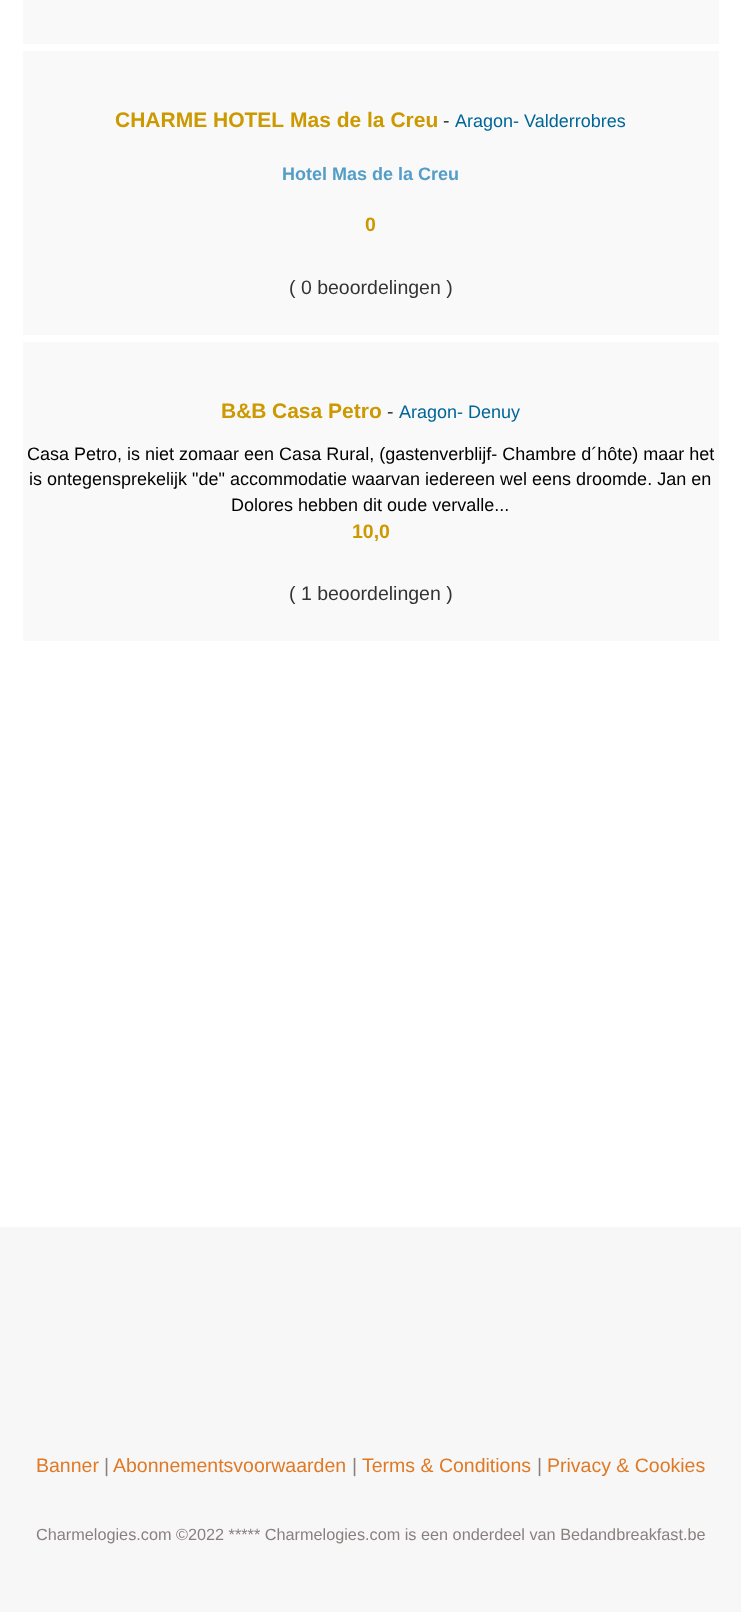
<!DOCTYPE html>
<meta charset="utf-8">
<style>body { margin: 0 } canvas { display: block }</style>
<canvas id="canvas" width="741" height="1612"></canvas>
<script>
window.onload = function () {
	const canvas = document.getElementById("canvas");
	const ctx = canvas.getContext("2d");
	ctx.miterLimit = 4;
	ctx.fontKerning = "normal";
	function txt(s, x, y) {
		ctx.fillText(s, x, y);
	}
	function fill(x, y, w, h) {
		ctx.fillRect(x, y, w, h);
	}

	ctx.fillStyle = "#F7F7F7";
	fill(0, 0, 741, 1612);
	ctx.fillStyle = "#FFFFFF";
	fill(0, 0, 741, 1227);
	ctx.fillStyle = "#F9F9F9";
	fill(23, 0, 696, 44);
	fill(23, 51, 696, 284);
	fill(23, 342, 696, 299);
	ctx.font = "bold 21px Liberation Sans";
	ctx.fillStyle = "#CC9900";
	txt("CHARME HOTEL", 115, 127);
	txt("Mas de la Creu", 290, 127);
	ctx.font = "19.5px Liberation Sans";
	ctx.fillStyle = "#333333";
	txt("-", 443, 127);
	ctx.font = "18px Liberation Sans";
	ctx.fillStyle = "#006699";
	txt("Aragon- Valderrobres", 455, 127);
	ctx.font = "bold 18px Liberation Sans";
	ctx.fillStyle = "#549DC7";
	txt("Hotel Mas de la Creu", 282, 180);
	ctx.font = "bold 19.5px Liberation Sans";
	ctx.fillStyle = "#CC9900";
	txt("0", 365, 231);
	ctx.font = "19.5px Liberation Sans";
	ctx.fillStyle = "#333333";
	txt("( 0 beoordelingen )", 289, 294);
	ctx.font = "bold 21px Liberation Sans";
	ctx.fillStyle = "#CC9900";
	txt("B&B", 221, 418);
	txt("Casa Petro", 272, 418);
	ctx.font = "19.5px Liberation Sans";
	ctx.fillStyle = "#333333";
	txt("-", 387, 418);
	ctx.font = "18px Liberation Sans";
	ctx.fillStyle = "#006699";
	txt("Aragon- Denuy", 399, 418);
	ctx.fillStyle = "#000000";
	txt("Casa Petro, is niet zomaar een Casa Rural, (gastenverblijf- Chambre d´hôte) maar het", 27, 460);
	txt("is ontegensprekelijk \"de\" accommodatie waarvan iedereen wel eens droomde. Jan en", 29, 485);
	txt("Dolores hebben dit oude vervalle...", 231, 511);
	ctx.font = "bold 19.5px Liberation Sans";
	ctx.fillStyle = "#CC9900";
	txt("10,0", 352, 538);
	ctx.font = "19.5px Liberation Sans";
	ctx.fillStyle = "#333333";
	txt("( 1 beoordelingen )", 289, 600);
	ctx.fillStyle = "#E07925";
	txt("Banner", 36, 1472);
	ctx.fillStyle = "#8A7F7F";
	txt("|", 104, 1472);
	ctx.fillStyle = "#E07925";
	txt("Abonnementsvoorwaarden", 113, 1472);
	ctx.fillStyle = "#8A7F7F";
	txt("|", 352, 1472);
	ctx.fillStyle = "#E07925";
	txt("Terms & Conditions", 362, 1472);
	ctx.fillStyle = "#8A7F7F";
	txt("|", 537, 1472);
	ctx.fillStyle = "#E07925";
	txt("Privacy & Cookies", 547, 1472);
	ctx.font = "16.25px Liberation Sans";
	ctx.fillStyle = "#8A7F7F";
	txt("Charmelogies.com ©2022 ***** Charmelogies.com is een onderdeel van Bedandbreakfast.be", 36, 1540);
};
</script>
